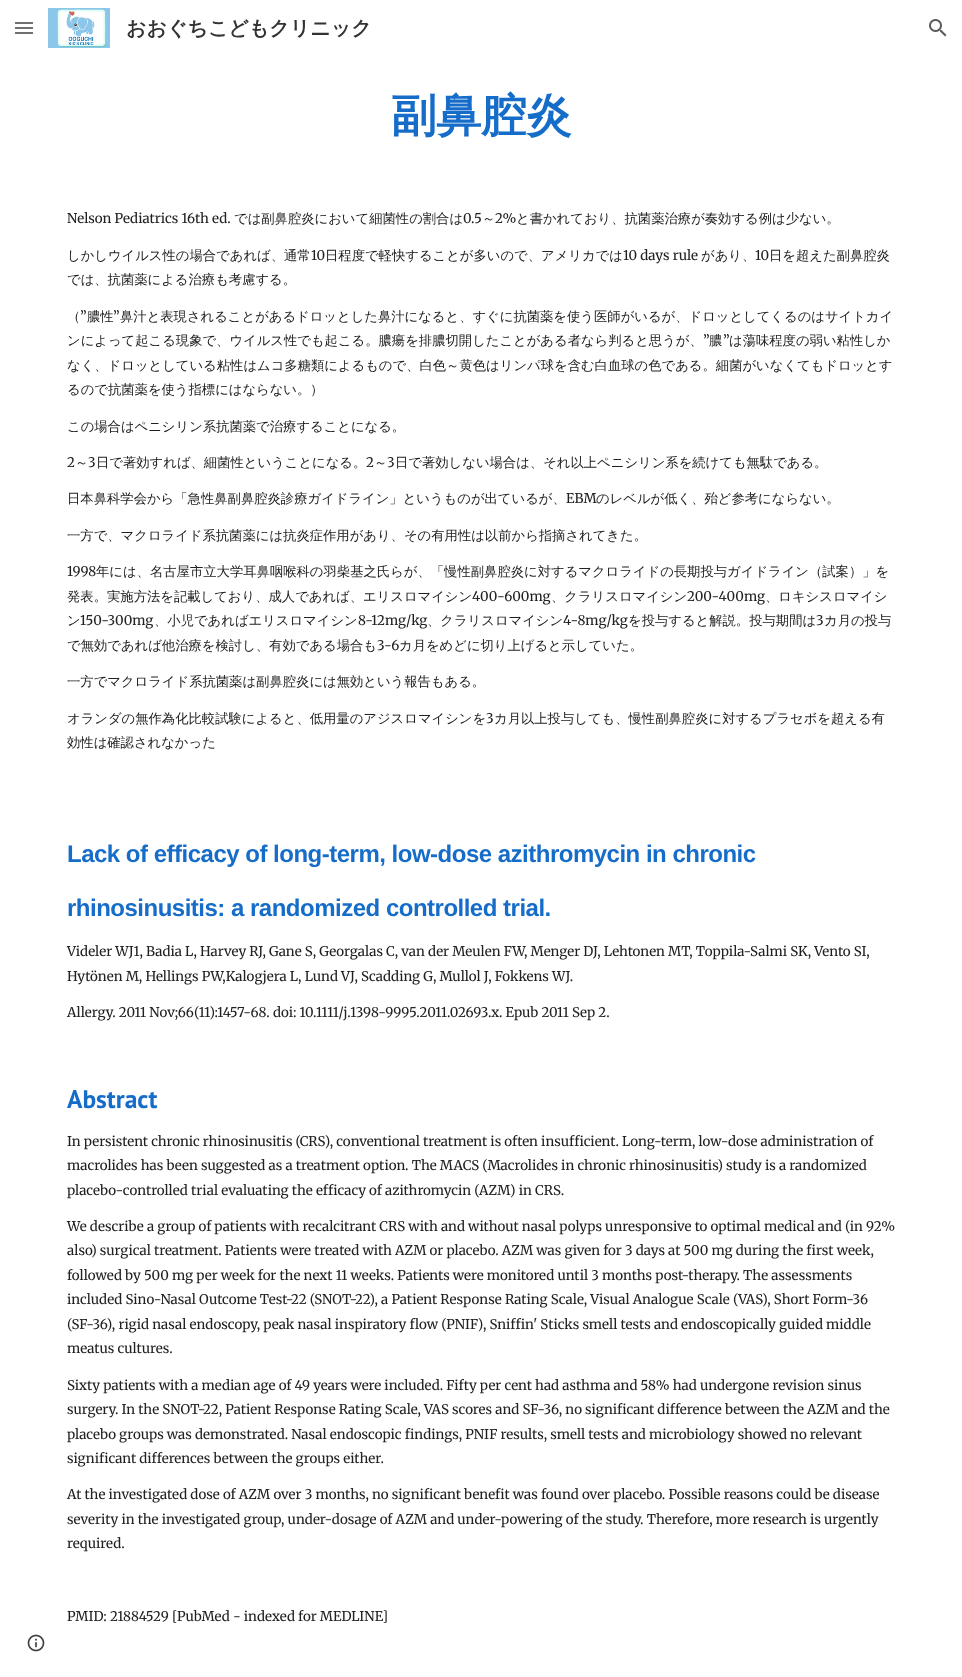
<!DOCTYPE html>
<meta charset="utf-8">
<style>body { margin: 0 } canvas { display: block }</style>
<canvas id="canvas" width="962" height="1677"></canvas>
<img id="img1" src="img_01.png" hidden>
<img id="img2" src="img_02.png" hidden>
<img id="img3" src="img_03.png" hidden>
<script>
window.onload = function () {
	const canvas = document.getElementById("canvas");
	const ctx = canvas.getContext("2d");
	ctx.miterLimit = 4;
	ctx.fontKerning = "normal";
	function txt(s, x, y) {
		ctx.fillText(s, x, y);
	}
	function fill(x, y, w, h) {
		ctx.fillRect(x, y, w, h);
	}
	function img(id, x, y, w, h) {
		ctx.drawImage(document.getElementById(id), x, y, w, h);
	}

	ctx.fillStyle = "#FFFFFF";
	fill(0, 0, 962, 1677);
	ctx.fillStyle = "#707070";
	fill(15, 22, 18, 2);
	fill(15, 27, 18, 2);
	fill(15, 32, 18, 2);
	img("img1", 48, 8, 62, 40);
	img("img2", 929, 19, 18, 18);
	img("img3", 27, 1634, 18, 18);
	ctx.font = "bold 20px WenQuanYi Zen Hei";
	ctx.fillStyle = "#333333";
	txt("おおぐちこどもクリニック", 126, 35);
	ctx.letterSpacing = "-0.5px";
	ctx.font = "bold 45.5px WenQuanYi Zen Hei";
	ctx.fillStyle = "#166DC9";
	txt("副鼻腔炎", 391, 131);
	ctx.letterSpacing = "0px";
	ctx.font = "13.33px Merriweather";
	ctx.fillStyle = "#212121";
	txt("Nelson Pediatrics 16th ed.", 67, 223);
	ctx.font = "500 13.33px WenQuanYi Zen Hei";
	txt("では副鼻腔炎において細菌性の割合は", 234, 223);
	ctx.font = "13.33px Merriweather";
	txt("0.5", 463, 223);
	ctx.font = "500 13.33px WenQuanYi Zen Hei";
	txt("～", 482, 223);
	ctx.font = "13.33px Merriweather";
	txt("2%", 495, 223);
	ctx.font = "500 13.33px WenQuanYi Zen Hei";
	txt("と書かれており、抗菌薬治療が奏効する例は少ない。", 516, 223);
	txt("しかしウイルス性の場合であれば、通常", 67, 260);
	ctx.font = "13.33px Merriweather";
	txt("10", 311, 260);
	ctx.font = "500 13.33px WenQuanYi Zen Hei";
	txt("日程度で軽快することが多いので、アメリカでは", 325, 260);
	ctx.font = "13.33px Merriweather";
	txt("10 days rule", 623, 260);
	ctx.font = "500 13.33px WenQuanYi Zen Hei";
	txt("があり、", 701, 260);
	ctx.font = "13.33px Merriweather";
	txt("10", 755, 260);
	ctx.font = "500 13.33px WenQuanYi Zen Hei";
	txt("日を超えた副鼻腔炎", 769, 260);
	txt("では、抗菌薬による治療も考慮する。", 67, 284);
	txt("（", 67, 321);
	ctx.font = "13.33px Merriweather";
	txt("”", 80, 321);
	ctx.font = "500 13.33px WenQuanYi Zen Hei";
	txt("膿性", 87, 321);
	ctx.font = "13.33px Merriweather";
	txt("”", 113, 321);
	ctx.font = "500 13.33px WenQuanYi Zen Hei";
	txt("鼻汁と表現されることがあるドロッとした鼻汁になると、すぐに抗菌薬を使う医師がいるが、ドロッとしてくるのはサイトカイ", 120, 321);
	txt("ンによって起こる現象で、ウイルス性でも起こる。膿瘍を排膿切開したことがある者なら判ると思うが、", 67, 345);
	ctx.font = "13.33px Merriweather";
	txt("”", 703, 345);
	ctx.font = "500 13.33px WenQuanYi Zen Hei";
	txt("膿", 709, 345);
	ctx.font = "13.33px Merriweather";
	txt("”", 723, 345);
	ctx.font = "500 13.33px WenQuanYi Zen Hei";
	txt("は蕩味程度の弱い粘性しか", 729, 345);
	txt("なく、ドロッとしている粘性はムコ多糖類によるもので、白色～黄色はリンパ球を含む白血球の色である。細菌がいなくてもドロッとす", 67, 370);
	txt("るので抗菌薬を使う指標にはならない。）", 67, 394);
	txt("この場合はペニシリン系抗菌薬で治療することになる。", 67, 431);
	ctx.font = "13.33px Merriweather";
	txt("2", 67, 467);
	ctx.font = "500 13.33px WenQuanYi Zen Hei";
	txt("～", 75, 467);
	ctx.font = "13.33px Merriweather";
	txt("3", 88, 467);
	ctx.font = "500 13.33px WenQuanYi Zen Hei";
	txt("日で著効すれば、細菌性ということになる。", 96, 467);
	ctx.font = "13.33px Merriweather";
	txt("2", 366, 467);
	ctx.font = "500 13.33px WenQuanYi Zen Hei";
	txt("～", 374, 467);
	ctx.font = "13.33px Merriweather";
	txt("3", 387, 467);
	ctx.font = "500 13.33px WenQuanYi Zen Hei";
	txt("日で著効しない場合は、それ以上ペニシリン系を続けても無駄である。", 395, 467);
	txt("日本鼻科学会から「急性鼻副鼻腔炎診療ガイドライン」というものが出ているが、", 67, 503);
	ctx.font = "13.33px Merriweather";
	txt("EBM", 566, 503);
	ctx.font = "500 13.33px WenQuanYi Zen Hei";
	txt("のレベルが低く、殆ど参考にならない。", 596, 503);
	txt("一方で、マクロライド系抗菌薬には抗炎症作用があり、その有用性は以前から指摘されてきた。", 67, 540);
	ctx.font = "13.33px Merriweather";
	txt("1998", 67, 576);
	ctx.font = "500 13.33px WenQuanYi Zen Hei";
	txt("年には、名古屋市立大学耳鼻咽喉科の羽柴基之氏らが、「慢性副鼻腔炎に対するマクロライドの長期投与ガイドライン（試案）」を", 96, 576);
	txt("発表。実施方法を記載しており、成人であれば、エリスロマイシン", 67, 601);
	ctx.font = "13.33px Merriweather";
	txt("400-600mg", 472, 601);
	ctx.font = "500 13.33px WenQuanYi Zen Hei";
	txt("、クラリスロマイシン", 551, 601);
	ctx.font = "13.33px Merriweather";
	txt("200-400mg", 687, 601);
	ctx.font = "500 13.33px WenQuanYi Zen Hei";
	txt("、ロキシスロマイシ", 765, 601);
	txt("ン", 67, 625);
	ctx.font = "13.33px Merriweather";
	txt("150-300mg", 80, 625);
	ctx.font = "500 13.33px WenQuanYi Zen Hei";
	txt("、小児であればエリスロマイシン", 154, 625);
	ctx.font = "13.33px Merriweather";
	txt("8-12mg/kg", 358, 625);
	ctx.font = "500 13.33px WenQuanYi Zen Hei";
	txt("、クラリスロマイシン", 427, 625);
	ctx.font = "13.33px Merriweather";
	txt("4-8mg/kg", 563, 625);
	ctx.font = "500 13.33px WenQuanYi Zen Hei";
	txt("を投与すると解説。投与期間は", 628, 625);
	ctx.font = "13.33px Merriweather";
	txt("3", 816, 625);
	ctx.font = "500 13.33px WenQuanYi Zen Hei";
	txt("カ月の投与", 824, 625);
	txt("で無効であれば他治療を検討し、有効である場合も", 67, 650);
	ctx.font = "13.33px Merriweather";
	txt("3-6", 377, 650);
	ctx.font = "500 13.33px WenQuanYi Zen Hei";
	txt("カ月をめどに切り上げると示していた。", 399, 650);
	txt("一方でマクロライド系抗菌薬は副鼻腔炎には無効という報告もある。", 67, 686);
	txt("オランダの無作為化比較試験によると、低用量のアジスロマイシンを", 67, 723);
	ctx.font = "13.33px Merriweather";
	txt("3", 486, 723);
	ctx.font = "500 13.33px WenQuanYi Zen Hei";
	txt("カ月以上投与しても、慢性副鼻腔炎に対するプラセボを超える有", 494, 723);
	txt("効性は確認されなかった", 67, 747);
	ctx.letterSpacing = "-0.5px";
	ctx.font = "bold 24px Liberation Sans";
	ctx.fillStyle = "#166DC9";
	txt("Lack of efficacy of long-term, low-dose azithromycin in chronic", 67, 862);
	txt("rhinosinusitis: a randomized controlled trial.", 67, 916);
	ctx.letterSpacing = "0px";
	ctx.font = "13.33px Merriweather";
	ctx.fillStyle = "#212121";
	txt("Videler WJ1, Badia L, Harvey RJ, Gane S, Georgalas C, van der Meulen FW, Menger DJ, Lehtonen MT, Toppila-Salmi SK, Vento SI,", 67, 956);
	txt("Hytönen M, Hellings PW,Kalogjera L, Lund VJ, Scadding G, Mullol J, Fokkens WJ.", 67, 981);
	txt("Allergy. 2011 Nov;66(11):1457-68. doi: 10.1111/j.1398-9995.2011.02693.x. Epub 2011 Sep 2.", 67, 1017);
	ctx.font = "bold 25.5px PT Sans";
	ctx.fillStyle = "#166DC9";
	txt("Abstract", 67, 1108);
	ctx.font = "13.33px Merriweather";
	ctx.fillStyle = "#212121";
	txt("In persistent chronic rhinosinusitis (CRS), conventional treatment is often insufficient. Long-term, low-dose administration of", 67, 1146);
	txt("macrolides has been suggested as a treatment option. The MACS (Macrolides in chronic rhinosinusitis) study is a randomized", 67, 1170);
	txt("placebo-controlled trial evaluating the efficacy of azithromycin (AZM) in CRS.", 67, 1195);
	txt("We describe a group of patients with recalcitrant CRS with and without nasal polyps unresponsive to optimal medical and (in 92%", 67, 1231);
	txt("also) surgical treatment. Patients were treated with AZM or placebo. AZM was given for 3 days at 500 mg during the first week,", 67, 1255);
	txt("followed by 500 mg per week for the next 11 weeks. Patients were monitored until 3 months post-therapy. The assessments", 67, 1280);
	txt("included Sino-Nasal Outcome Test-22 (SNOT-22), a Patient Response Rating Scale, Visual Analogue Scale (VAS), Short Form-36", 67, 1304);
	txt("(SF-36), rigid nasal endoscopy, peak nasal inspiratory flow (PNIF), Sniffin' Sticks smell tests and endoscopically guided middle", 67, 1329);
	txt("meatus cultures.", 67, 1353);
	txt("Sixty patients with a median age of 49 years were included. Fifty per cent had asthma and 58% had undergone revision sinus", 67, 1390);
	txt("surgery. In the SNOT-22, Patient Response Rating Scale, VAS scores and SF-36, no significant difference between the AZM and the", 67, 1414);
	txt("placebo groups was demonstrated. Nasal endoscopic findings, PNIF results, smell tests and microbiology showed no relevant", 67, 1439);
	txt("significant differences between the groups either.", 67, 1463);
	txt("At the investigated dose of AZM over 3 months, no significant benefit was found over placebo. Possible reasons could be disease", 67, 1499);
	txt("severity in the investigated group, under-dosage of AZM and under-powering of the study. Therefore, more research is urgently", 67, 1524);
	txt("required.", 67, 1548);
	txt("PMID: 21884529 [PubMed - indexed for MEDLINE]", 67, 1621);
};
</script>
